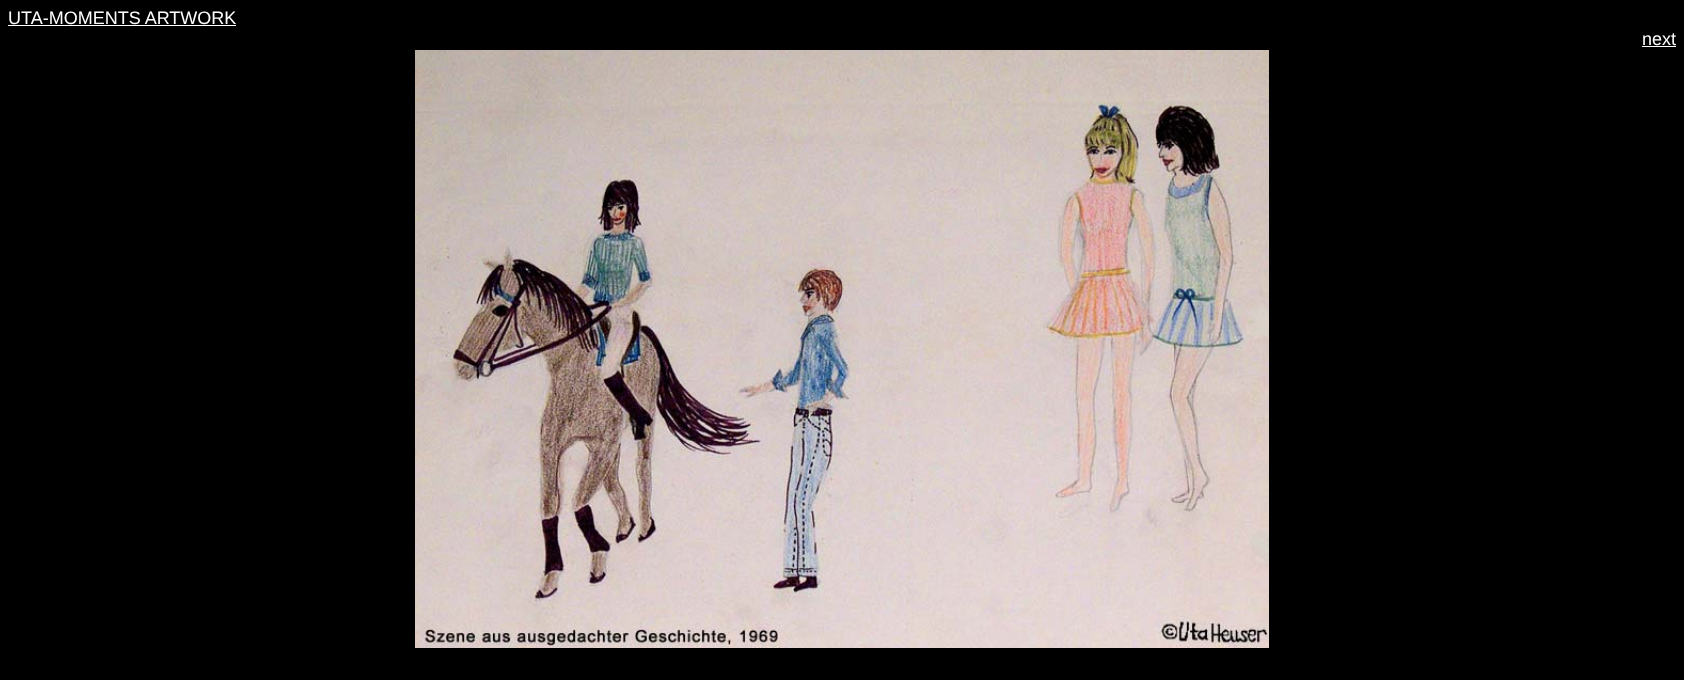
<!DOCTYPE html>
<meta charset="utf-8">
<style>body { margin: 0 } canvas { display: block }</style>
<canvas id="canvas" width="1684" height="680"></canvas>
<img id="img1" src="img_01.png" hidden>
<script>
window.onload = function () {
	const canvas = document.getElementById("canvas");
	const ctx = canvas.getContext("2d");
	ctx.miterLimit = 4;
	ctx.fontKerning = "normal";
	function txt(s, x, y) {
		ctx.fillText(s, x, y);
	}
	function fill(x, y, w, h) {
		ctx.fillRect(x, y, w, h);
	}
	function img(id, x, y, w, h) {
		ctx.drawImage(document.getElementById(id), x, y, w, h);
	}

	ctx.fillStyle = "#000000";
	fill(0, 0, 1684, 680);
	ctx.fillStyle = "#FFFFFF";
	fill(8, 25, 228, 1);
	fill(1642, 46, 34, 1);
	img("img1", 415, 50, 854, 598);
	ctx.font = "18px Liberation Sans";
	txt("UTA-MOMENTS ARTWORK", 8, 24);
	txt("next", 1642, 45);
};
</script>
